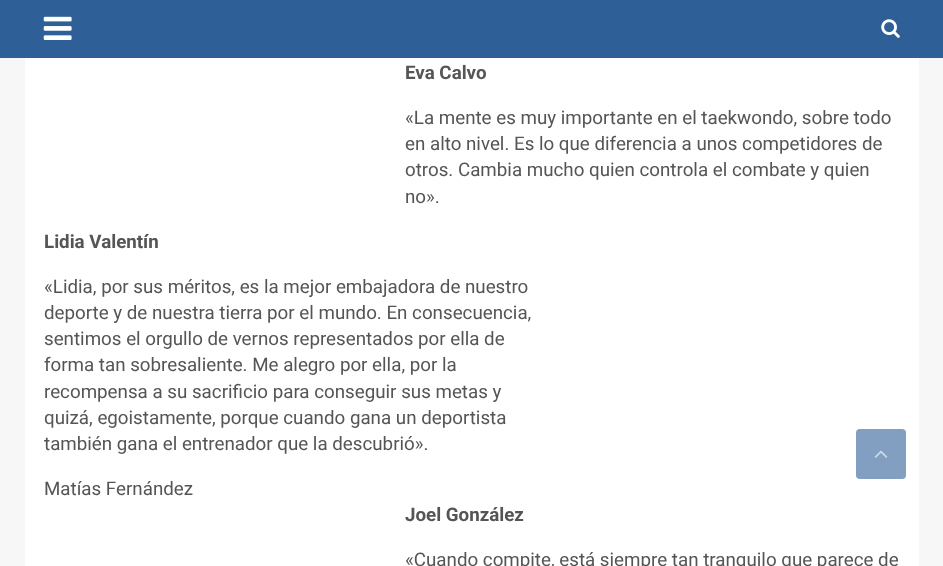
<!DOCTYPE html>
<meta charset="utf-8">
<style>body { margin: 0 } canvas { display: block }</style>
<canvas id="canvas" width="943" height="566"></canvas>
<img id="img1" src="img_01.png" hidden>
<img id="img2" src="img_02.png" hidden>
<img id="img3" src="img_03.png" hidden>
<script>
window.onload = function () {
	const canvas = document.getElementById("canvas");
	const ctx = canvas.getContext("2d");
	ctx.miterLimit = 4;
	ctx.fontKerning = "normal";
	function txt(s, x, y) {
		ctx.fillText(s, x, y);
	}
	function fill(x, y, w, h) {
		ctx.fillRect(x, y, w, h);
	}
	function round(x, y, w, h, r) {
		ctx.beginPath();
		ctx.roundRect(x, y, w, h, r);
		ctx.fill();
	}
	function img(id, x, y, w, h) {
		ctx.drawImage(document.getElementById(id), x, y, w, h);
	}

	ctx.fillStyle = "#F7F7F7";
	fill(0, 0, 943, 566);
	ctx.fillStyle = "#2E5F97";
	fill(0, 0, 943, 58);
	img("img1", 43, 16, 29, 24);
	img("img2", 881, 19, 19, 19);
	ctx.fillStyle = "#FFFFFF";
	fill(25, 58, 894, 508);
	ctx.fillStyle = "#829FC1";
	round(856, 429, 50, 50, 4);
	img("img3", 874, 450, 14, 8);
	ctx.font = "bold 18.75px Roboto";
	ctx.fillStyle = "#555555";
	txt("Eva Calvo", 405, 79);
	ctx.font = "18.75px Roboto";
	txt("«La mente es muy importante en el taekwondo, sobre todo", 405, 124);
	txt("en alto nivel. Es lo que diferencia a unos competidores de", 405, 150);
	txt("otros. Cambia mucho quien controla el combate y quien", 405, 176);
	txt("no».", 405, 203);
	ctx.font = "bold 18.75px Roboto";
	txt("Lidia Valentín", 44, 248);
	ctx.font = "18.75px Roboto";
	txt("«Lidia, por sus méritos, es la mejor embajadora de nuestro", 44, 293);
	txt("deporte y de nuestra tierra por el mundo. En consecuencia,", 44, 319);
	txt("sentimos el orgullo de vernos representados por ella de", 44, 345);
	txt("forma tan sobresaliente. Me alegro por ella, por la", 44, 371);
	txt("recompensa a su sacrificio para conseguir sus metas y", 44, 398);
	txt("quizá, egoistamente, porque cuando gana un deportista", 44, 424);
	txt("también gana el entrenador que la descubrió».", 44, 450);
	txt("Matías Fernández", 44, 495);
	ctx.font = "bold 18.75px Roboto";
	txt("Joel González", 405, 521);
	ctx.font = "18.75px Roboto";
	txt("«Cuando compite, está siempre tan tranquilo que parece de", 405, 566);
};
</script>
